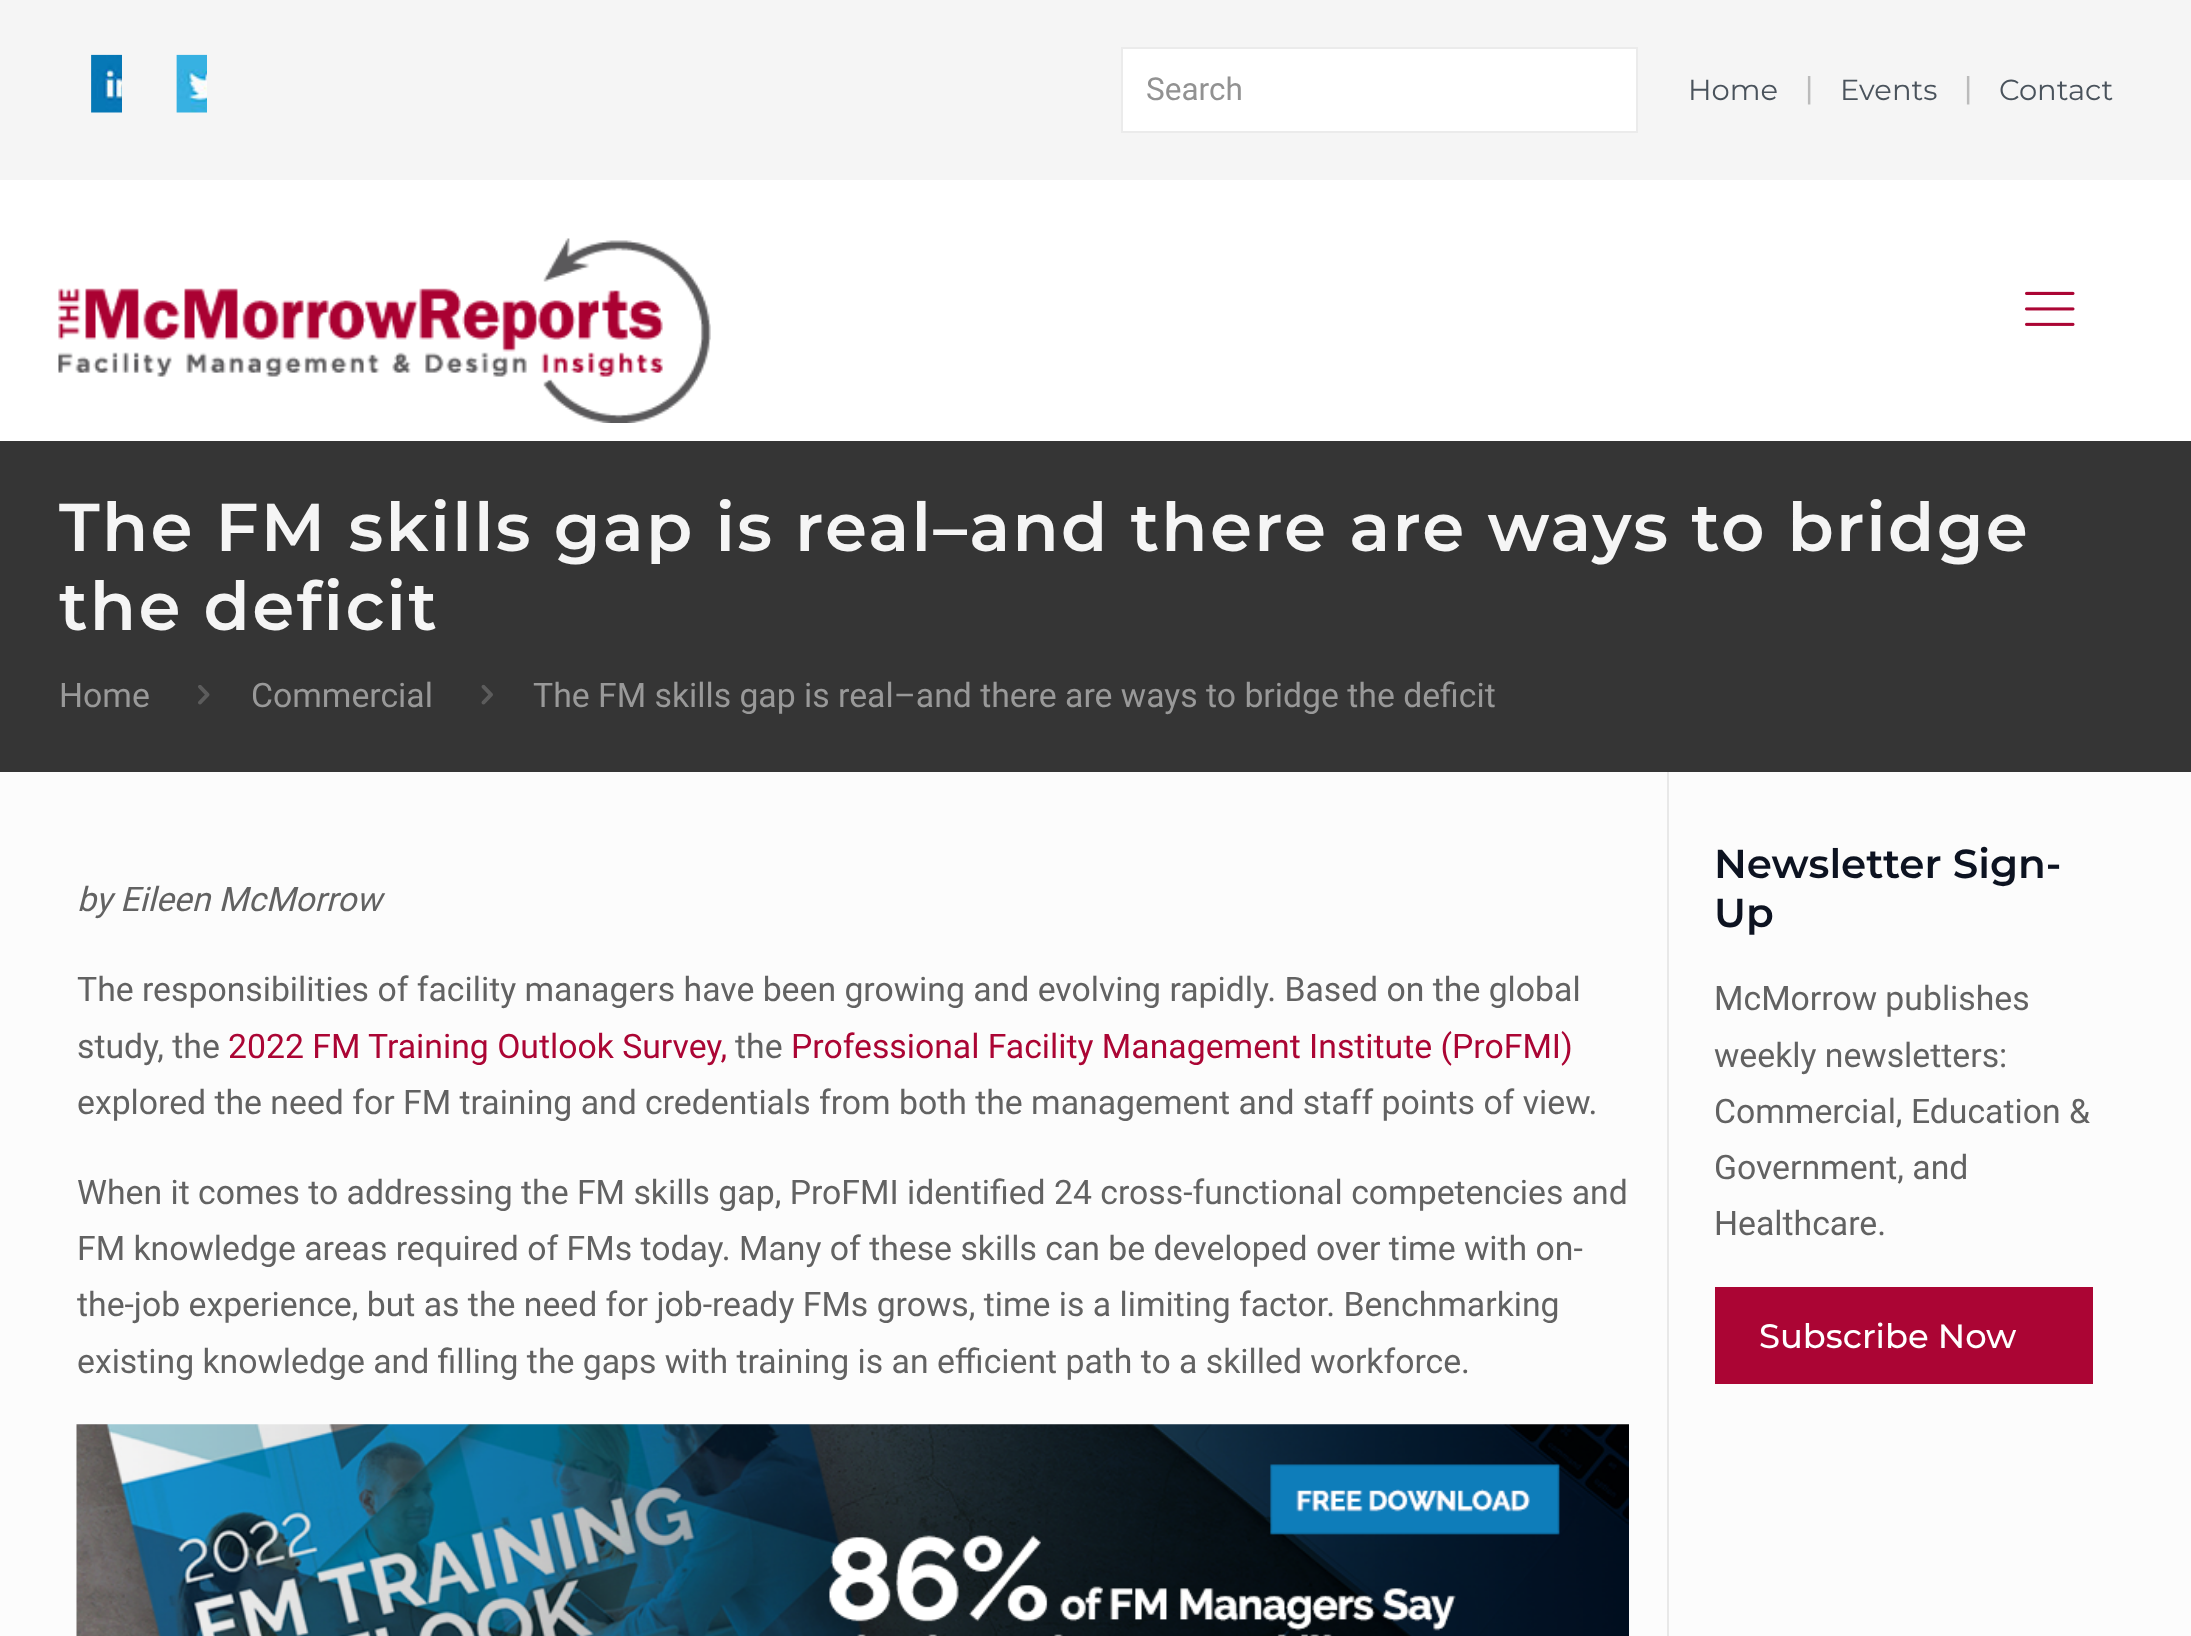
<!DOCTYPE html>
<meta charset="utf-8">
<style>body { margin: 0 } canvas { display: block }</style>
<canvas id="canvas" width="2191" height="1636"></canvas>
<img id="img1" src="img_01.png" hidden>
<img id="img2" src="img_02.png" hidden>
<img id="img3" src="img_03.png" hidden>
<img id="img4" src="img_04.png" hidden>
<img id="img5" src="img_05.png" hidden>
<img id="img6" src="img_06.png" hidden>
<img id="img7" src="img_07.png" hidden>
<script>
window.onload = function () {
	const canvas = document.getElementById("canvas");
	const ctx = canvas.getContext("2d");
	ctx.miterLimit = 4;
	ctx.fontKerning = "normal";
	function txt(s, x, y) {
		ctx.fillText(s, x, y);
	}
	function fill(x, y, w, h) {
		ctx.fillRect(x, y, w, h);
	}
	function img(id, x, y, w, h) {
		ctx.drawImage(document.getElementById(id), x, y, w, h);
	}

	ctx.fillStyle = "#FCFCFC";
	fill(0, 0, 2191, 1636);
	ctx.fillStyle = "#F5F5F5";
	fill(0, 0, 2191, 180);
	img("img1", 91, 54, 31, 59);
	img("img2", 176, 54, 31, 59);
	ctx.fillStyle = "#FFFFFF";
	ctx.beginPath();
	ctx.rect(1122, 48, 515, 84);
	ctx.fill();
	ctx.strokeStyle = "#EBEBEB";
	ctx.lineWidth = 2;
	ctx.stroke();
	fill(0, 180, 2191, 261);
	img("img3", 58, 238, 653, 185);
	img("img4", 2025, 291, 50, 35);
	ctx.fillStyle = "#353535";
	fill(0, 441, 2191, 331);
	img("img5", 198, 685, 12, 20);
	img("img6", 481, 684, 12, 21);
	img("img7", 76, 1424, 1553, 212);
	ctx.fillStyle = "#E8E8E8";
	fill(1667, 772, 2, 864);
	ctx.fillStyle = "#AB0534";
	fill(1715, 1287, 378, 97);
	ctx.font = "31.5px Roboto";
	ctx.fillStyle = "#929292";
	txt("Search", 1146, 100);
	ctx.font = "29px Montserrat";
	ctx.fillStyle = "#4A535C";
	txt("Home", 1688, 100);
	ctx.font = "33.75px Roboto";
	ctx.fillStyle = "#BBBBBB";
	txt("|", 1805, 100);
	ctx.font = "29px Montserrat";
	ctx.fillStyle = "#4A535C";
	txt("Events", 1840, 100);
	ctx.font = "33.75px Roboto";
	ctx.fillStyle = "#BBBBBB";
	txt("|", 1964, 100);
	ctx.font = "29px Montserrat";
	ctx.fillStyle = "#4A535C";
	txt("Contact", 1999, 100);
	ctx.letterSpacing = "2.25px";
	ctx.font = "600 67.5px Montserrat";
	ctx.fillStyle = "#F5F5F5";
	txt("The FM skills gap is real–and there are ways to bridge", 59, 551);
	txt("the deficit", 59, 630);
	ctx.letterSpacing = "0px";
	ctx.font = "33.75px Roboto";
	ctx.fillStyle = "#999999";
	txt("Home", 59, 707);
	txt("Commercial", 251, 707);
	txt("The FM skills gap is real–and there are ways to bridge the deficit", 533, 707);
	ctx.font = "italic 33.75px Roboto";
	ctx.fillStyle = "#626262";
	txt("by Eileen McMorrow", 77, 911);
	ctx.font = "33.75px Roboto";
	txt("The responsibilities of facility managers have been growing and evolving rapidly. Based on the global", 77, 1001);
	txt("study, the", 77, 1058);
	ctx.fillStyle = "#AB0534";
	txt("2022 FM Training Outlook Survey,", 228, 1058);
	ctx.fillStyle = "#626262";
	txt("the", 735, 1058);
	ctx.fillStyle = "#AB0534";
	txt("Professional Facility Management Institute (ProFMI)", 791, 1058);
	ctx.fillStyle = "#626262";
	txt("explored the need for FM training and credentials from both the management and staff points of view.", 77, 1114);
	txt("When it comes to addressing the FM skills gap, ProFMI identified 24 cross-functional competencies and", 77, 1204);
	txt("FM knowledge areas required of FMs today. Many of these skills can be developed over time with on-", 77, 1260);
	txt("the-job experience, but as the need for job-ready FMs grows, time is a limiting factor. Benchmarking", 77, 1316);
	txt("existing knowledge and filling the gaps with training is an efficient path to a skilled workforce.", 77, 1373);
	ctx.font = "600 40.5px Montserrat";
	ctx.fillStyle = "#0D1321";
	txt("Newsletter Sign-", 1714, 878);
	txt("Up", 1714, 927);
	ctx.font = "33.75px Roboto";
	ctx.fillStyle = "#626262";
	txt("McMorrow publishes", 1714, 1010);
	txt("weekly newsletters:", 1714, 1067);
	txt("Commercial, Education &", 1714, 1123);
	txt("Government, and", 1714, 1179);
	txt("Healthcare.", 1714, 1235);
	ctx.font = "500 33.75px Montserrat";
	ctx.fillStyle = "#FFFFFF";
	txt("Subscribe Now", 1759, 1348);
};
</script>
